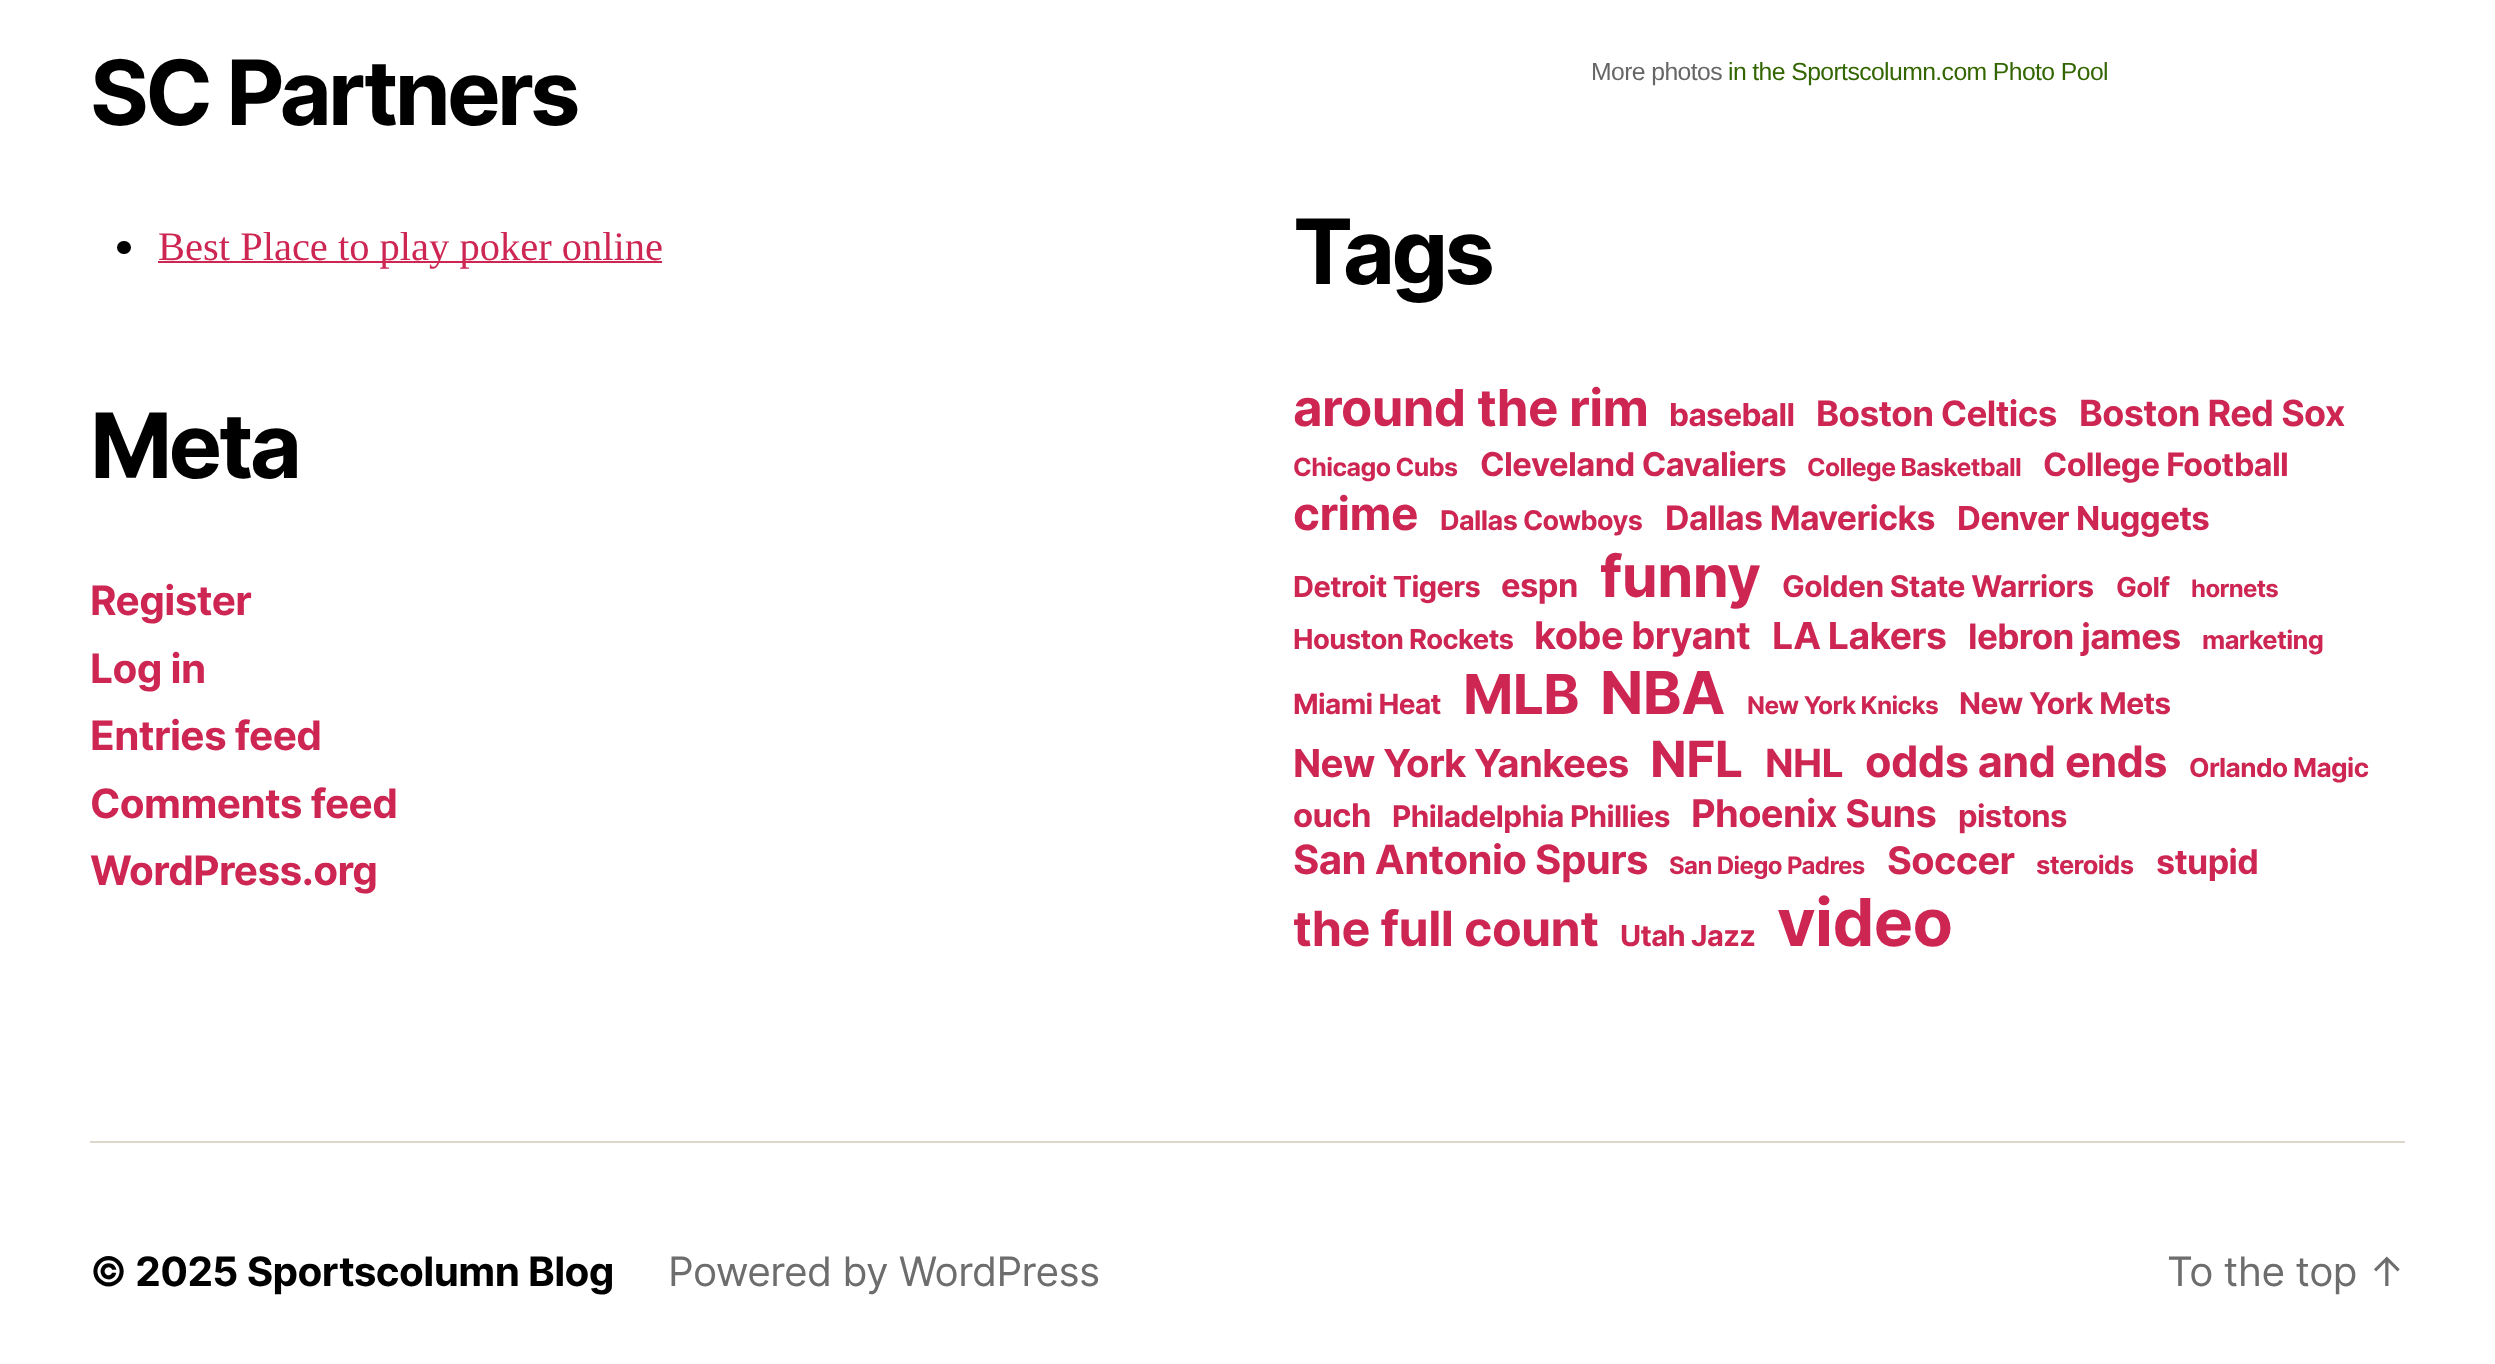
<!DOCTYPE html>
<meta charset="utf-8">
<style>body { margin: 0 } canvas { display: block }</style>
<canvas id="canvas" width="2495" height="1364"></canvas>
<script>
window.onload = function () {
	const canvas = document.getElementById("canvas");
	const ctx = canvas.getContext("2d");
	ctx.miterLimit = 4;
	ctx.fontKerning = "normal";
	function txt(s, x, y) {
		ctx.fillText(s, x, y);
	}
	function fill(x, y, w, h) {
		ctx.fillRect(x, y, w, h);
	}
	function round(x, y, w, h, r) {
		ctx.beginPath();
		ctx.roundRect(x, y, w, h, r);
		ctx.fill();
	}

	ctx.fillStyle = "#FFFFFF";
	fill(0, 0, 2495, 1364);
	ctx.fillStyle = "#DCD7CA";
	fill(90, 1141, 2315, 2);
	ctx.fillStyle = "#000000";
	round(117, 241, 14, 13, 6.5);
	ctx.fillStyle = "#CD2653";
	fill(158, 261, 504, 2);
	ctx.letterSpacing = "-3.75px";
	ctx.font = "bold 90px Inter";
	ctx.fillStyle = "#000000";
	txt("SC Partners", 90, 125);
	ctx.letterSpacing = "0px";
	ctx.font = "40.5px Liberation Serif";
	ctx.fillStyle = "#CD2653";
	txt("Best Place to play poker online", 158, 260);
	ctx.letterSpacing = "-3.75px";
	ctx.font = "bold 90px Inter";
	ctx.fillStyle = "#000000";
	txt("Meta", 90, 478);
	ctx.letterSpacing = "-0.6px";
	ctx.font = "bold 40.5px Inter";
	ctx.fillStyle = "#CD2653";
	txt("Register", 90, 615);
	txt("Log in", 90, 683);
	txt("Entries feed", 90, 750);
	txt("Comments feed", 90, 818);
	txt("WordPress.org", 90, 885);
	ctx.font = "24.75px Liberation Sans";
	ctx.fillStyle = "#666666";
	txt("More photos", 1591, 80);
	ctx.fillStyle = "#336600";
	txt("in the Sportscolumn.com Photo Pool", 1728, 80);
	ctx.letterSpacing = "-3.75px";
	ctx.font = "bold 90px Inter";
	ctx.fillStyle = "#000000";
	txt("Tags", 1293, 284);
	ctx.letterSpacing = "-0.6px";
	ctx.font = "bold 51px Inter";
	ctx.fillStyle = "#CD2653";
	txt("around the rim", 1293, 426);
	ctx.font = "bold 31.5px Inter";
	txt("baseball", 1669, 426);
	ctx.font = "bold 35px Inter";
	txt("Boston Celtics", 1816, 426);
	ctx.font = "bold 36px Inter";
	txt("Boston Red Sox", 2079, 426);
	ctx.font = "bold 25px Inter";
	txt("Chicago Cubs", 1293, 476);
	ctx.font = "bold 32.75px Inter";
	txt("Cleveland Cavaliers", 1480, 476);
	ctx.font = "bold 24.75px Inter";
	txt("College Basketball", 1807, 476);
	ctx.font = "bold 32.25px Inter";
	txt("College Football", 2043, 476);
	ctx.font = "bold 46px Inter";
	txt("crime", 1293, 530);
	ctx.font = "bold 27px Inter";
	txt("Dallas Cowboys", 1440, 530);
	ctx.font = "bold 33.75px Inter";
	txt("Dallas Mavericks", 1665, 530);
	ctx.font = "bold 33px Inter";
	txt("Denver Nuggets", 1957, 530);
	ctx.font = "bold 29px Inter";
	txt("Detroit Tigers", 1293, 597);
	ctx.font = "bold 32.75px Inter";
	txt("espn", 1501, 597);
	ctx.font = "bold 58px Inter";
	txt("funny", 1600, 597);
	ctx.font = "bold 30px Inter";
	txt("Golden State Warriors", 1782, 597);
	ctx.font = "bold 27.5px Inter";
	txt("Golf", 2116, 597);
	ctx.font = "bold 24px Inter";
	txt("hornets", 2191, 597);
	ctx.font = "bold 27.5px Inter";
	txt("Houston Rockets", 1293, 649);
	ctx.font = "bold 38px Inter";
	txt("kobe bryant", 1534, 649);
	ctx.font = "bold 37.25px Inter";
	txt("LA Lakers", 1772, 649);
	ctx.font = "bold 35px Inter";
	txt("lebron james", 1968, 649);
	ctx.font = "bold 25.5px Inter";
	txt("marketing", 2202, 649);
	ctx.font = "bold 28px Inter";
	txt("Miami Heat", 1293, 714);
	ctx.font = "bold 55px Inter";
	txt("MLB", 1463, 714);
	ctx.font = "bold 59px Inter";
	txt("NBA", 1600, 714);
	ctx.font = "bold 24.5px Inter";
	txt("New York Knicks", 1747, 714);
	ctx.font = "bold 30px Inter";
	txt("New York Mets", 1959, 714);
	ctx.font = "bold 38.4px Inter";
	txt("New York Yankees", 1293, 777);
	ctx.font = "bold 50px Inter";
	txt("NFL", 1650, 777);
	ctx.font = "bold 39px Inter";
	txt("NHL", 1765, 777);
	ctx.font = "bold 43.25px Inter";
	txt("odds and ends", 1865, 777);
	ctx.font = "bold 26.25px Inter";
	txt("Orlando Magic", 2189, 777);
	ctx.font = "bold 32.75px Inter";
	txt("ouch", 1293, 827);
	ctx.font = "bold 29.75px Inter";
	txt("Philadelphia Phillies", 1392, 827);
	ctx.font = "bold 38px Inter";
	txt("Phoenix Suns", 1691, 827);
	ctx.font = "bold 31px Inter";
	txt("pistons", 1958, 827);
	ctx.font = "bold 40.25px Inter";
	txt("San Antonio Spurs", 1293, 874);
	ctx.font = "bold 24px Inter";
	txt("San Diego Padres", 1669, 874);
	ctx.font = "bold 38px Inter";
	txt("Soccer", 1887, 874);
	ctx.font = "bold 25.5px Inter";
	txt("steroids", 2036, 874);
	ctx.font = "bold 34px Inter";
	txt("stupid", 2156, 874);
	ctx.font = "bold 48.5px Inter";
	txt("the full count", 1293, 946);
	ctx.font = "bold 29px Inter";
	txt("Utah Jazz", 1620, 946);
	ctx.font = "bold 66px Inter";
	txt("video", 1777, 946);
	ctx.font = "bold 40.5px Inter";
	ctx.fillStyle = "#000000";
	txt("© 2025 Sportscolumn Blog", 90, 1286);
	ctx.font = "40.5px Inter";
	ctx.fillStyle = "#6D6D6D";
	txt("Powered by WordPress", 668, 1286);
	txt("To the top ↑", 2167, 1286);
};
</script>
